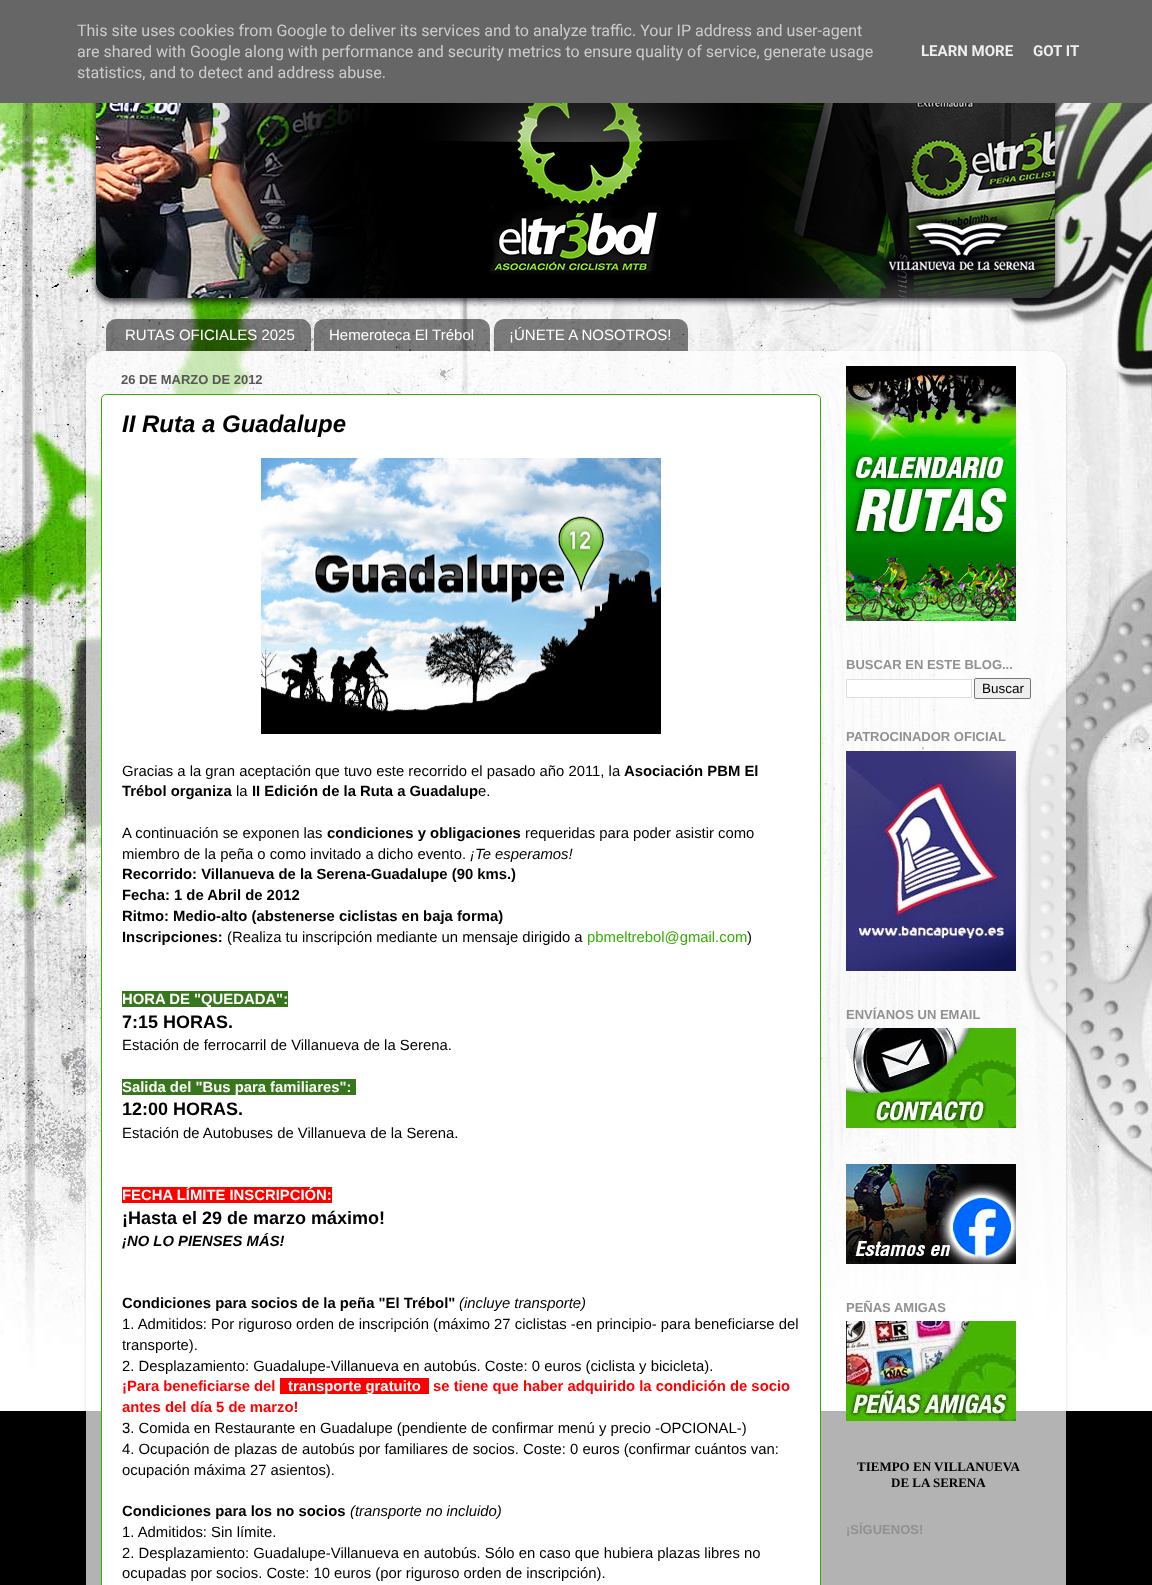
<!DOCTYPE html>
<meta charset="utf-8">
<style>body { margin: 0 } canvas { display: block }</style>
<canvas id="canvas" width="1152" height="1585"></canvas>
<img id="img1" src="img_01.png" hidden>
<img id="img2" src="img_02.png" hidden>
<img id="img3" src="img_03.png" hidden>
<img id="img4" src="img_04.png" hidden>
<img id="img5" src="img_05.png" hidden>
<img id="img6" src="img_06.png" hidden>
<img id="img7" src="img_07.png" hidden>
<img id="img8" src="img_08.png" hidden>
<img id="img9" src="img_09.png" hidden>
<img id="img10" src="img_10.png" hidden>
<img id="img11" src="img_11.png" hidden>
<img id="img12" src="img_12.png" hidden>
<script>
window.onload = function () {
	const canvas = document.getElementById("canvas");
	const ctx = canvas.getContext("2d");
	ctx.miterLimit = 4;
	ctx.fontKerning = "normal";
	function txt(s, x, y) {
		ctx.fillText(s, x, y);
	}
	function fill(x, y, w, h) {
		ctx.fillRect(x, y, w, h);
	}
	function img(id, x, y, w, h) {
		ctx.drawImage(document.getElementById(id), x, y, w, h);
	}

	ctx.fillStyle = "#000000";
	fill(0, 0, 1152, 1585);
	ctx.fillStyle = "#666666";
	fill(0, 0, 1152, 103);
	img("img1", 0, 103, 1152, 1308);
	img("img2", 90, 103, 971, 205);
	img("img3", 106, 319, 205, 32);
	img("img4", 314, 319, 176, 32);
	img("img5", 494, 319, 194, 32);
	ctx.save();
	ctx.beginPath();
	ctx.moveTo(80, 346);
	ctx.lineTo(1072, 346);
	ctx.lineTo(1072, 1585);
	ctx.lineTo(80, 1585);
	ctx.closePath();
	ctx.moveTo(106, 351);
	ctx.lineTo(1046, 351);
	ctx.bezierCurveTo(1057, 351, 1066, 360, 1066, 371);
	ctx.lineTo(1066, 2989);
	ctx.lineTo(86, 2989);
	ctx.lineTo(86, 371);
	ctx.bezierCurveTo(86, 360, 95, 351, 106, 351);
	ctx.closePath();
	ctx.clip("evenodd");
	ctx.fillStyle = "rgba(0, 0, 0, 0.15)";
	ctx.filter = "blur(1.5px)";
	ctx.beginPath();
	ctx.roundRect(86, 352, 980, 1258, 20);
	ctx.fill();
	ctx.filter = "none";
	ctx.restore();
	img("img6", 86, 351, 980, 1234);
	ctx.fillStyle = "#FFFFFF";
	ctx.beginPath();
	ctx.roundRect(101.5, 394.5, 719, 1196, 4.5);
	ctx.fill();
	ctx.strokeStyle = "#36AE02";
	ctx.stroke();
	img("img7", 261, 458, 400, 276);
	ctx.fillStyle = "#38761D";
	fill(122, 991, 166, 16);
	fill(122, 1079, 234, 16);
	ctx.fillStyle = "#FF0000";
	fill(122, 1187, 210, 16);
	fill(280, 1378, 149, 16);
	img("img8", 846, 366, 170, 255);
	ctx.fillStyle = "#FFFFFF";
	ctx.beginPath();
	ctx.rect(846.5, 679.5, 125, 18);
	ctx.fill();
	ctx.strokeStyle = "#DDDDDD";
	ctx.stroke();
	ctx.fillStyle = "#EFEFEF";
	ctx.beginPath();
	ctx.roundRect(974.5, 678.5, 56, 20, 1.5);
	ctx.fill();
	ctx.strokeStyle = "#767676";
	ctx.stroke();
	img("img9", 846, 751, 170, 220);
	img("img10", 846, 1028, 170, 100);
	img("img11", 846, 1164, 170, 100);
	img("img12", 846, 1321, 170, 100);
	ctx.font = "16px Roboto";
	ctx.fillStyle = "#CCCCCC";
	txt("This site uses cookies from Google to deliver its services and to analyze traffic. Your IP address and user-agent", 77, 36);
	txt("are shared with Google along with performance and security metrics to ensure quality of service, generate usage", 77, 57);
	txt("statistics, and to detect and address abuse.", 77, 78);
	ctx.font = "bold 15px Roboto";
	ctx.fillStyle = "#EEEEEE";
	txt("LEARN MORE", 921, 56);
	txt("GOT IT", 1033, 56);
	ctx.font = "15px Liberation Sans";
	ctx.fillStyle = "#FFFFFF";
	txt("RUTAS OFICIALES 2025", 125, 340);
	txt("Hemeroteca El Trébol", 329, 340);
	txt("¡ÚNETE A NOSOTROS!", 509, 340);
	ctx.font = "bold 13px Liberation Sans";
	ctx.fillStyle = "#575757";
	txt("26 DE MARZO DE 2012", 121, 384);
	ctx.font = "italic bold 24px Liberation Sans";
	ctx.fillStyle = "#000000";
	txt("II Ruta a Guadalupe", 122, 432);
	ctx.font = "14.85px Liberation Sans";
	txt("Gracias a la gran aceptación que tuvo este recorrido el pasado año 2011, la", 122, 776);
	ctx.font = "bold 14.85px Liberation Sans";
	txt("Asociación PBM El", 624, 776);
	txt("Trébol organiza", 122, 796);
	ctx.font = "14.85px Liberation Sans";
	txt("la", 236, 796);
	ctx.font = "bold 14.85px Liberation Sans";
	txt("II Edición de la Ruta a Guadalup", 252, 796);
	ctx.font = "14.85px Liberation Sans";
	txt("e.", 478, 796);
	txt("A continuación se exponen las", 122, 838);
	ctx.font = "bold 14.85px Liberation Sans";
	txt("condiciones y obligaciones", 327, 838);
	ctx.font = "14.85px Liberation Sans";
	txt("requeridas para poder asistir como", 525, 838);
	txt("miembro de la peña o como invitado a dicho evento.", 122, 859);
	ctx.font = "italic 14.85px Liberation Sans";
	txt("¡Te esperamos!", 470, 859);
	ctx.font = "bold 14.85px Liberation Sans";
	txt("Recorrido: Villanueva de la Serena-Guadalupe (90 kms.)", 122, 879);
	txt("Fecha: 1 de Abril de 2012", 122, 900);
	txt("Ritmo: Medio-alto (abstenerse ciclistas en baja forma)", 122, 921);
	txt("Inscripciones:", 122, 942);
	ctx.font = "14.85px Liberation Sans";
	txt("(Realiza tu inscripción mediante un mensaje dirigido a", 227, 942);
	ctx.fillStyle = "#36AE02";
	txt("pbmeltrebol@gmail.com", 587, 942);
	ctx.fillStyle = "#000000";
	txt(")", 747, 942);
	ctx.font = "bold 14.85px Liberation Sans";
	ctx.fillStyle = "#FFFFFF";
	txt("HORA DE \"QUEDADA\":", 122, 1004);
	ctx.font = "bold 18px Liberation Sans";
	ctx.fillStyle = "#000000";
	txt("7:15 HORAS.", 122, 1028);
	ctx.font = "14.85px Liberation Sans";
	txt("Estación de ferrocarril de Villanueva de la Serena.", 122, 1050);
	ctx.font = "bold 14.85px Liberation Sans";
	ctx.fillStyle = "#FFFFFF";
	txt("Salida del \"Bus para familiares\":", 122, 1092);
	ctx.font = "bold 18px Liberation Sans";
	ctx.fillStyle = "#000000";
	txt("12:00 HORAS.", 122, 1115);
	ctx.font = "14.85px Liberation Sans";
	txt("Estación de Autobuses de Villanueva de la Serena.", 122, 1138);
	ctx.font = "bold 14.85px Liberation Sans";
	ctx.fillStyle = "#FFFFFF";
	txt("FECHA LÍMITE INSCRIPCIÓN:", 122, 1200);
	ctx.font = "bold 18px Liberation Sans";
	ctx.fillStyle = "#000000";
	txt("¡Hasta el 29 de marzo máximo!", 122, 1224);
	ctx.font = "italic bold 14.85px Liberation Sans";
	txt("¡NO LO PIENSES MÁS!", 122, 1246);
	ctx.font = "bold 14.85px Liberation Sans";
	txt("Condiciones para socios de la peña \"El Trébol\"", 122, 1308);
	ctx.font = "italic 14.85px Liberation Sans";
	txt("(incluye transporte)", 459, 1308);
	ctx.font = "14.85px Liberation Sans";
	txt("1. Admitidos: Por riguroso orden de inscripción (máximo 27 ciclistas -en principio- para beneficiarse del", 122, 1329);
	txt("transporte).", 122, 1350);
	txt("2. Desplazamiento: Guadalupe-Villanueva en autobús. Coste: 0 euros (ciclista y bicicleta).", 122, 1371);
	ctx.font = "bold 14.85px Liberation Sans";
	ctx.fillStyle = "#FF0000";
	txt("¡Para beneficiarse del", 122, 1391);
	ctx.fillStyle = "#FFFFFF";
	txt("transporte gratuito", 288, 1391);
	ctx.fillStyle = "#FF0000";
	txt("se tiene que haber adquirido la condición de socio", 433, 1391);
	txt("antes del día 5 de marzo!", 122, 1412);
	ctx.font = "14.85px Liberation Sans";
	ctx.fillStyle = "#000000";
	txt("3. Comida en Restaurante en Guadalupe (pendiente de confirmar menú y precio -OPCIONAL-)", 122, 1433);
	txt("4. Ocupación de plazas de autobús por familiares de socios. Coste: 0 euros (confirmar cuántos van:", 122, 1454);
	txt("ocupación máxima 27 asientos).", 122, 1475);
	ctx.font = "bold 14.85px Liberation Sans";
	txt("Condiciones para los no socios", 122, 1516);
	ctx.font = "italic 14.85px Liberation Sans";
	txt("(transporte no incluido)", 350, 1516);
	ctx.font = "14.85px Liberation Sans";
	txt("1. Admitidos: Sin límite.", 122, 1537);
	txt("2. Desplazamiento: Guadalupe-Villanueva en autobús. Sólo en caso que hubiera plazas libres no", 122, 1558);
	txt("ocupadas por socios. Coste: 10 euros (por riguroso orden de inscripción).", 122, 1578);
	ctx.font = "bold 13px Liberation Sans";
	ctx.fillStyle = "#919191";
	txt("BUSCAR EN ESTE BLOG...", 846, 669);
	ctx.font = "13.5px Liberation Sans";
	ctx.fillStyle = "#000000";
	txt("Buscar", 982, 693);
	ctx.font = "bold 13px Liberation Sans";
	ctx.fillStyle = "#919191";
	txt("PATROCINADOR OFICIAL", 846, 741);
	txt("ENVÍANOS UN EMAIL", 846, 1019);
	txt("PEÑAS AMIGAS", 846, 1312);
	ctx.font = "bold 13px Liberation Serif";
	ctx.fillStyle = "#000000";
	txt("TIEMPO EN VILLANUEVA", 857, 1471);
	txt("DE LA SERENA", 891, 1487);
	ctx.font = "bold 13px Liberation Sans";
	ctx.fillStyle = "#919191";
	txt("¡SÍGUENOS!", 846, 1534);
};
</script>
